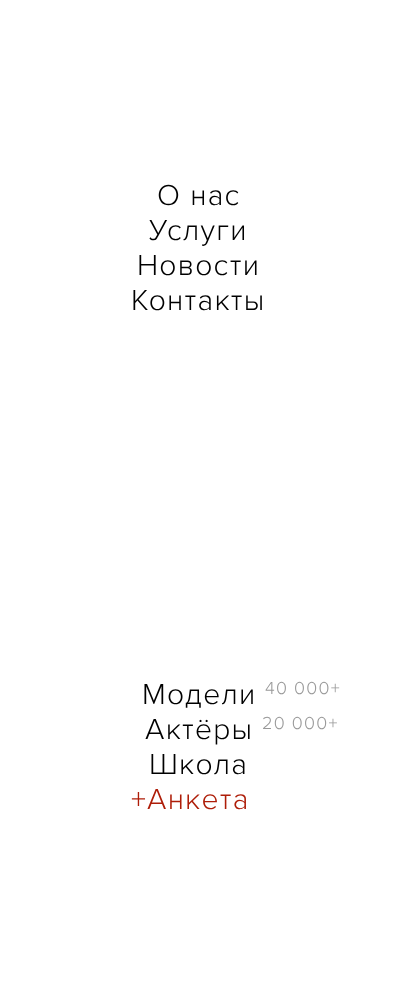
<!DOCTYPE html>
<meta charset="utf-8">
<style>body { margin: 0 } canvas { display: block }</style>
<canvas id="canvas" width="398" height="999"></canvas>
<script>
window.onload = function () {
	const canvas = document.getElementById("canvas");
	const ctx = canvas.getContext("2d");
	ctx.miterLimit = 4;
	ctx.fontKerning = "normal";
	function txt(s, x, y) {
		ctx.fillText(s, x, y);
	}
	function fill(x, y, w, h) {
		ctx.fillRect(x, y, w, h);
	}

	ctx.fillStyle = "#FFFFFF";
	fill(0, 0, 398, 999);
	ctx.letterSpacing = "1.25px";
	ctx.font = "300 30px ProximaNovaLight";
	ctx.fillStyle = "#000000";
	txt("О нас", 157, 205);
	txt("Услуги", 149, 240);
	txt("Новости", 137, 275);
	txt("Контакты", 131, 310);
	txt("Модели", 142, 704);
	ctx.font = "300 18px ProximaNovaLight";
	ctx.fillStyle = "#999999";
	txt("40 000+", 265, 694);
	ctx.font = "300 30px ProximaNovaLight";
	ctx.fillStyle = "#000000";
	txt("Актёры", 145, 739);
	ctx.font = "300 18px ProximaNovaLight";
	ctx.fillStyle = "#999999";
	txt("20 000+", 262, 729);
	ctx.font = "300 30px ProximaNovaLight";
	ctx.fillStyle = "#000000";
	txt("Школа", 149, 774);
	ctx.fillStyle = "#AE1D08";
	txt("+", 131, 809);
	txt("Анкета", 147, 809);
};
</script>
